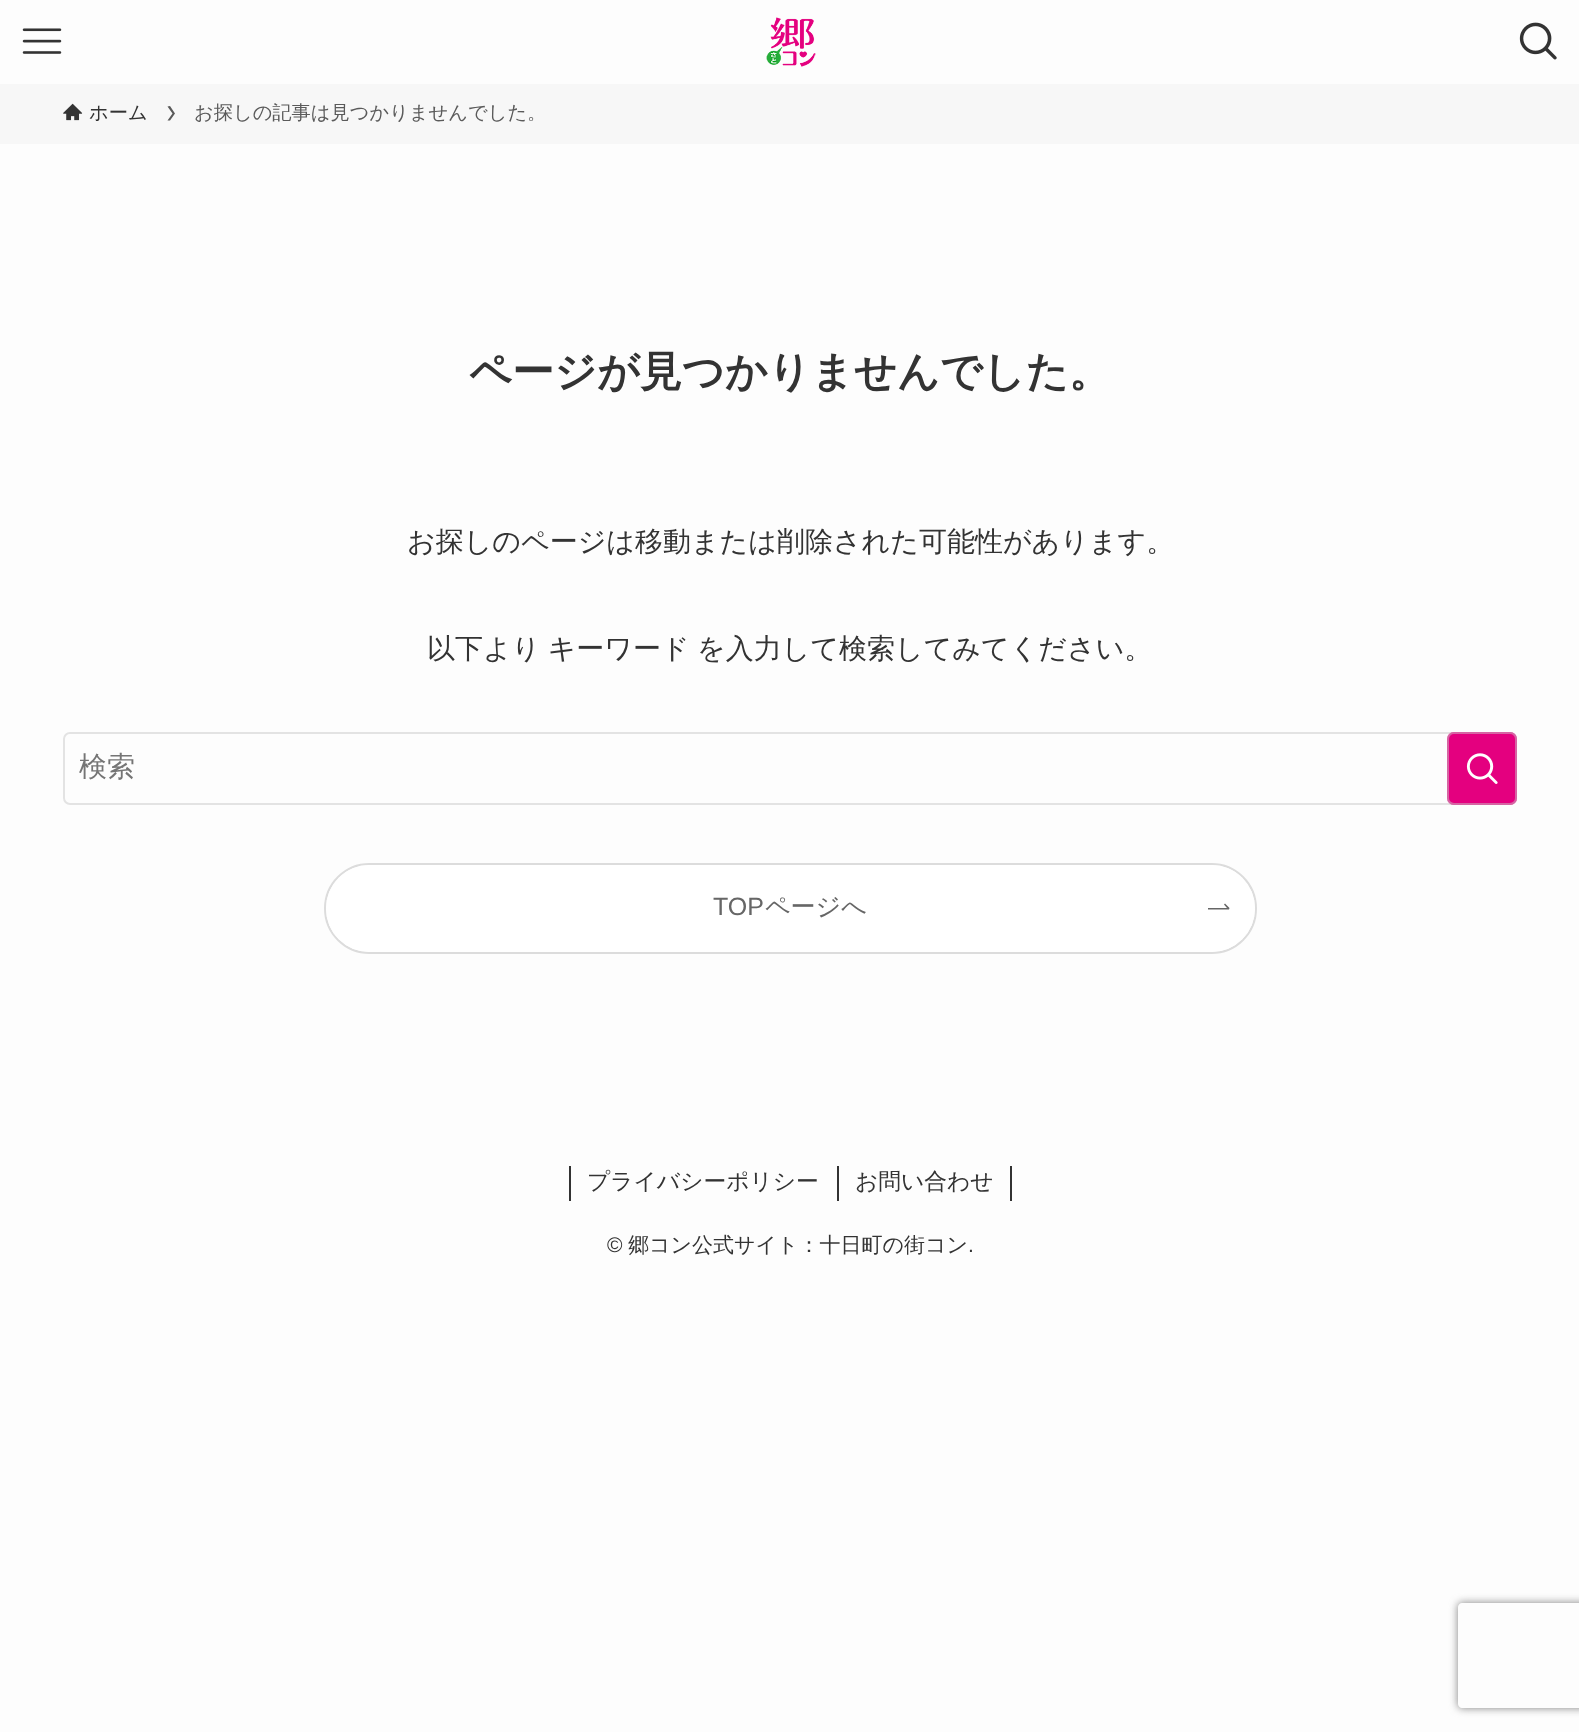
<!DOCTYPE html>
<meta charset="utf-8">
<style>body { margin: 0 } canvas { display: block }</style>
<canvas id="canvas" width="1579" height="1732"></canvas>
<img id="img1" src="img_01.png" hidden>
<img id="img2" src="img_02.png" hidden>
<img id="img3" src="img_03.png" hidden>
<img id="img4" src="img_04.png" hidden>
<img id="img5" src="img_05.png" hidden>
<script>
window.onload = function () {
	const canvas = document.getElementById("canvas");
	const ctx = canvas.getContext("2d");
	ctx.miterLimit = 4;
	ctx.fontKerning = "normal";
	function txt(s, x, y) {
		ctx.fillText(s, x, y);
	}
	function fill(x, y, w, h) {
		ctx.fillRect(x, y, w, h);
	}
	function round(x, y, w, h, r) {
		ctx.beginPath();
		ctx.roundRect(x, y, w, h, r);
		ctx.fill();
	}
	function img(id, x, y, w, h) {
		ctx.drawImage(document.getElementById(id), x, y, w, h);
	}

	ctx.fillStyle = "#FDFDFD";
	fill(0, 0, 1579, 1732);
	img("img1", 22, 28, 40, 26);
	img("img2", 766, 17, 50, 50);
	img("img3", 1519, 22, 38, 38);
	ctx.fillStyle = "#F7F7F7";
	fill(0, 84, 1579, 60);
	img("img4", 63, 103, 20, 18);
	ctx.fillStyle = "#5A5A5A";
	ctx.beginPath();
	ctx.moveTo(170, 106);
	ctx.lineTo(167.5, 106.5);
	ctx.lineTo(172.5, 113.5);
	ctx.lineTo(167.5, 120.5);
	ctx.lineTo(170, 120.5);
	ctx.lineTo(175, 113.5);
	ctx.closePath();
	ctx.fill();
	ctx.beginPath();
	ctx.roundRect(64, 733, 1452, 71, 6);
	ctx.strokeStyle = "#E3E3E3";
	ctx.lineWidth = 2;
	ctx.stroke();
	ctx.fillStyle = "#E4007F";
	round(1447, 732, 70, 73, 7);
	ctx.beginPath();
	ctx.roundRect(1448, 733, 68, 71, 6);
	ctx.strokeStyle = "rgba(199, 199, 199, 0.5)";
	ctx.stroke();
	img("img5", 1466, 753, 32, 31);
	ctx.beginPath();
	ctx.roundRect(325, 864, 931, 89, 44.5);
	ctx.strokeStyle = "#DCDCDC";
	ctx.stroke();
	ctx.fillStyle = "#FFFFFF";
	round(326, 865, 929, 87, 43.5);
	ctx.fillStyle = "#666666";
	ctx.beginPath();
	ctx.moveTo(1229, 909.5);
	ctx.lineTo(1208, 909.5);
	ctx.lineTo(1208, 908);
	ctx.lineTo(1227, 908);
	ctx.lineTo(1224, 904.5);
	ctx.lineTo(1225, 903.5);
	ctx.lineTo(1229.5, 908);
	ctx.closePath();
	ctx.fill();
	ctx.fillStyle = "#333333";
	fill(837, 1166, 2, 35);
	fill(569, 1166, 2, 35);
	fill(1010, 1166, 2, 35);
	ctx.save();
	ctx.beginPath();
	ctx.moveTo(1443, 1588);
	ctx.lineTo(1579, 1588);
	ctx.lineTo(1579, 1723);
	ctx.lineTo(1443, 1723);
	ctx.closePath();
	ctx.moveTo(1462, 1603);
	ctx.lineTo(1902, 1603);
	ctx.bezierCurveTo(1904, 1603, 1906, 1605, 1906, 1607);
	ctx.lineTo(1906, 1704);
	ctx.bezierCurveTo(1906, 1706, 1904, 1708, 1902, 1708);
	ctx.lineTo(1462, 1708);
	ctx.bezierCurveTo(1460, 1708, 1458, 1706, 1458, 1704);
	ctx.lineTo(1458, 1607);
	ctx.bezierCurveTo(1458, 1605, 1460, 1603, 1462, 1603);
	ctx.closePath();
	ctx.clip("evenodd");
	ctx.fillStyle = "#808080";
	ctx.filter = "blur(4.5px)";
	ctx.beginPath();
	ctx.roundRect(1458, 1603, 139, 105, 4);
	ctx.fill();
	ctx.filter = "none";
	ctx.restore();
	ctx.font = "500 19.25px WenQuanYi Zen Hei";
	txt("ホーム", 89, 119);
	ctx.fillStyle = "#5A5A5A";
	txt("お探しの記事は見つかりませんでした。", 194, 119);
	ctx.font = "bold 42px WenQuanYi Zen Hei";
	ctx.fillStyle = "#333333";
	txt("ページが見つかりませんでした。", 469, 386);
	ctx.font = "500 28px WenQuanYi Zen Hei";
	txt("お探しのページは移動または削除された可能性があります。", 407, 551);
	ctx.wordSpacing = "-1px";
	txt("以下より キーワード を入力して検索してみてください。", 427, 658);
	ctx.wordSpacing = "0px";
	ctx.fillStyle = "#757575";
	txt("検索", 79, 776);
	ctx.font = "25px Liberation Sans";
	ctx.fillStyle = "#666666";
	txt("TOP", 713, 915);
	ctx.font = "500 25px WenQuanYi Zen Hei";
	txt("ページへ", 765, 915);
	ctx.font = "500 22.75px WenQuanYi Zen Hei";
	ctx.fillStyle = "#333333";
	txt("プライバシーポリシー", 587, 1189);
	txt("お問い合わせ", 855, 1189);
	ctx.font = "21px Liberation Sans";
	txt("©", 607, 1252);
	ctx.font = "500 21px WenQuanYi Zen Hei";
	txt("郷コン公式サイト：十日町の街コン", 628, 1252);
	ctx.font = "21px Liberation Sans";
	txt(".", 968, 1252);
};
</script>
